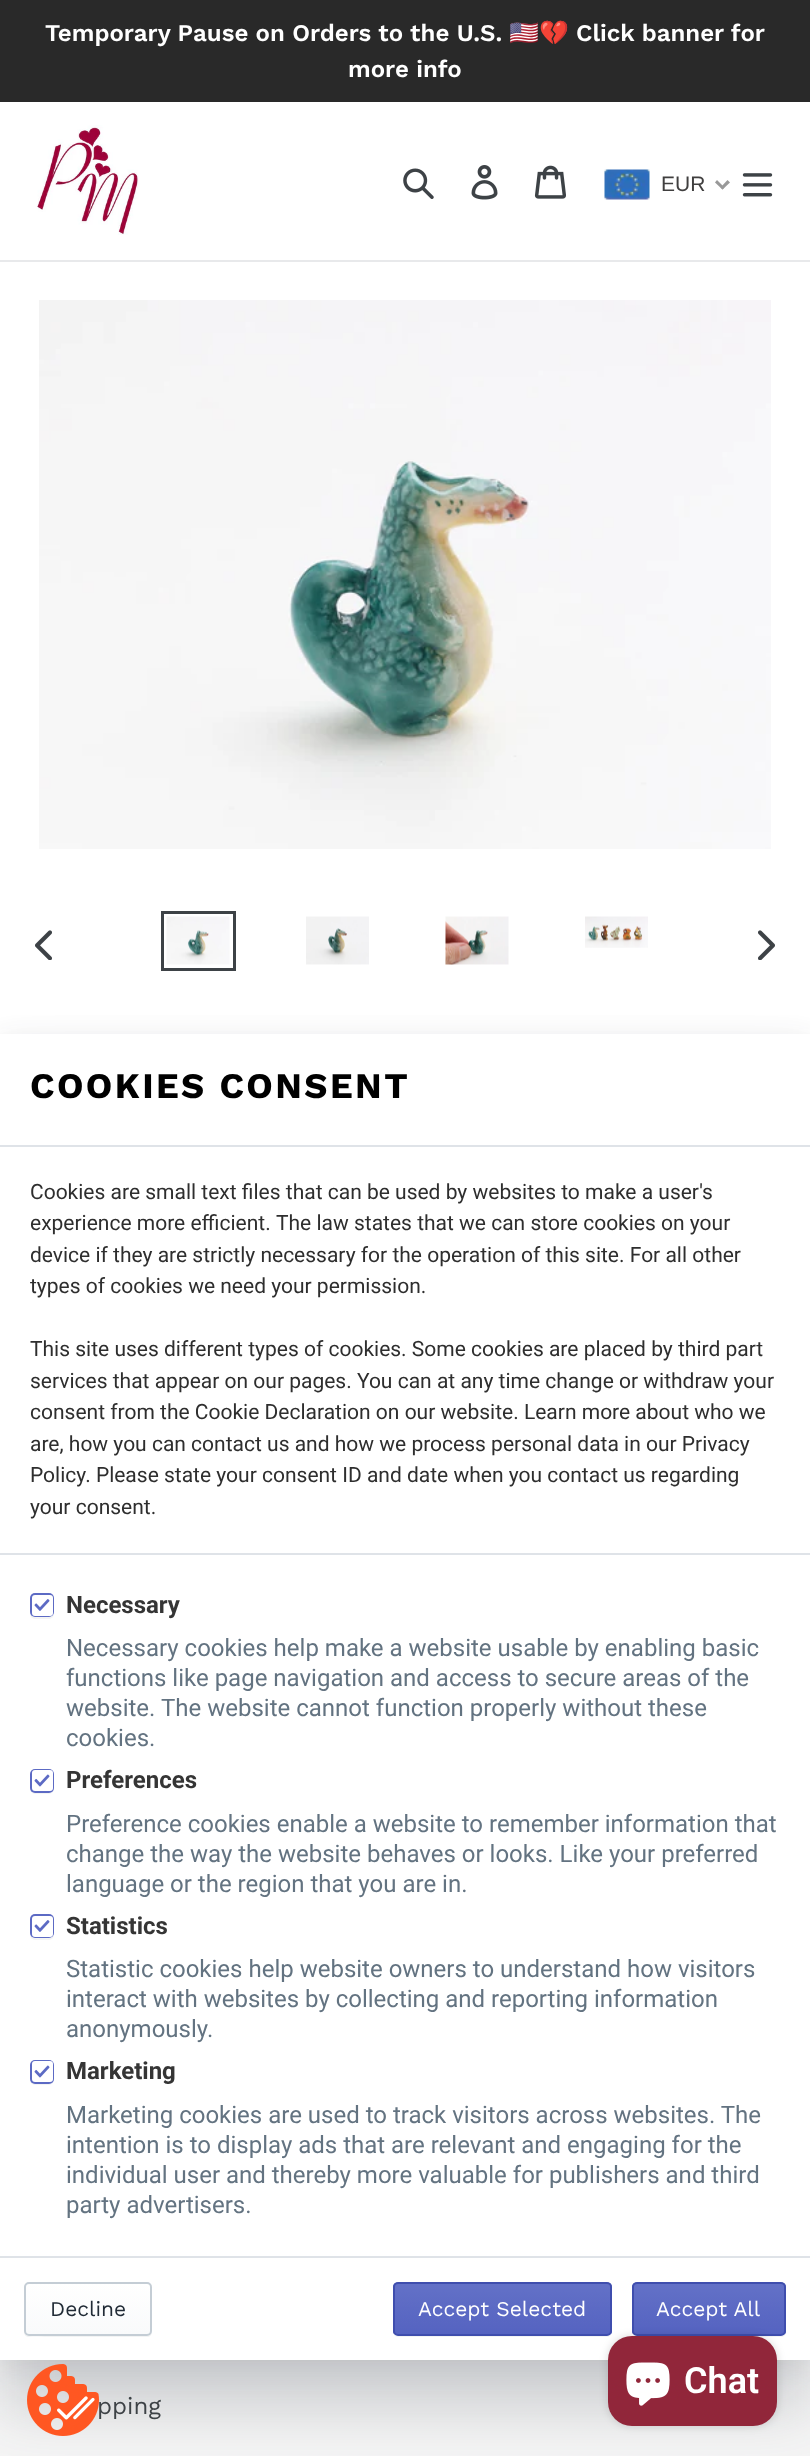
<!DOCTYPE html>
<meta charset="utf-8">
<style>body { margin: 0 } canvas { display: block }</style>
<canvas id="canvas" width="810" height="2456"></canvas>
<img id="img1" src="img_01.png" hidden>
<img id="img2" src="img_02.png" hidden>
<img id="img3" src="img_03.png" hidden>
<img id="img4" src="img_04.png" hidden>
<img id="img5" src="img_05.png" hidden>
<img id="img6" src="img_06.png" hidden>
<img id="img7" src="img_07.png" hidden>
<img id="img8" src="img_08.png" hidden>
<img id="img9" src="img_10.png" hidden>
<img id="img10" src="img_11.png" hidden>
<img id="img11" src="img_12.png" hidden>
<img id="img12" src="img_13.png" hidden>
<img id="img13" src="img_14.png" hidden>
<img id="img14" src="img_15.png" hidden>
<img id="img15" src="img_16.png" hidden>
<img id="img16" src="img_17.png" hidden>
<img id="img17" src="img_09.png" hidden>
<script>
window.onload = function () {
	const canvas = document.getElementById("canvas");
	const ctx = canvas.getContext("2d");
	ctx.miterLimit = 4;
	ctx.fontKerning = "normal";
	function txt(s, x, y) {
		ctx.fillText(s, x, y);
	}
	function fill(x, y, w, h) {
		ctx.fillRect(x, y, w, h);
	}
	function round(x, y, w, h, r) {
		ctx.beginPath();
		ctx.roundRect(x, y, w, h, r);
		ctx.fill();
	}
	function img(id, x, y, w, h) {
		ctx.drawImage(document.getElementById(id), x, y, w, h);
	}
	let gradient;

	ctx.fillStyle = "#FFFFFF";
	fill(0, 0, 810, 2456);
	ctx.fillStyle = "#292929";
	fill(0, 0, 810, 102);
	ctx.fillStyle = "#E8E9EB";
	fill(0, 260, 810, 2);
	img("img1", 36, 125, 103, 110);
	img("img2", 403, 168, 31, 31);
	img("img3", 471, 165, 27, 35);
	img("img4", 534, 165, 32, 34);
	img("img5", 604, 169, 46, 31);
	ctx.fillStyle = "#999999";
	ctx.beginPath();
	ctx.moveTo(727.5, 180);
	ctx.lineTo(730, 182.5);
	ctx.lineTo(722.5, 189.5);
	ctx.lineTo(720.5, 187.5);
	ctx.closePath();
	ctx.fill();
	ctx.beginPath();
	ctx.moveTo(717, 180);
	ctx.lineTo(724.5, 187.5);
	ctx.lineTo(722.5, 189.5);
	ctx.lineTo(715, 182.5);
	ctx.closePath();
	ctx.fill();
	img("img6", 742, 173, 31, 24);
	ctx.fillStyle = "#F5F5F5";
	fill(0, 2360, 810, 96);
	ctx.fillStyle = "rgba(32, 42, 54, 0.08)";
	ctx.filter = "blur(12px)";
	ctx.beginPath();
	ctx.rect(0, 1037, 810, 1326);
	ctx.fill();
	ctx.filter = "none";
	ctx.fillStyle = "rgba(32, 42, 53, 0.2)";
	ctx.filter = "blur(31px)";
	ctx.beginPath();
	ctx.rect(0, 1080, 810, 1326);
	ctx.fill();
	ctx.filter = "none";
	ctx.fillStyle = "#FFFFFF";
	fill(0, 1034, 810, 1326);
	ctx.fillStyle = "#DFE3E8";
	fill(0, 1145, 810, 2);
	fill(0, 1553, 810, 2);
	ctx.fillStyle = "#F3F4F4";
	ctx.beginPath();
	ctx.moveTo(30, 1612.5);
	ctx.bezierCurveTo(30, 1620.5, 36, 1619, 42, 1619);
	ctx.bezierCurveTo(48, 1619, 54, 1620.5, 54, 1612.5);
	ctx.bezierCurveTo(54, 1618.5, 45.5, 1617, 42, 1617);
	ctx.bezierCurveTo(38.5, 1617, 30, 1618.5, 30, 1612.5);
	ctx.closePath();
	ctx.fill();
	ctx.fillStyle = "#5C6AC4";
	round(30, 1593, 24, 24, 5);
	ctx.fillStyle = "#FFFFFF";
	round(32, 1595, 21, 21, 3);
	img("img7", 34, 1599, 16, 12);
	ctx.fillStyle = "#F3F4F4";
	ctx.beginPath();
	ctx.moveTo(30, 1788);
	ctx.bezierCurveTo(30, 1795.5, 36.5, 1794, 42, 1794);
	ctx.bezierCurveTo(47.5, 1794, 54, 1795.5, 54, 1788);
	ctx.bezierCurveTo(54, 1794, 45.5, 1792.5, 42, 1792.5);
	ctx.bezierCurveTo(38.5, 1792.5, 30, 1794, 30, 1788);
	ctx.closePath();
	ctx.fill();
	ctx.fillStyle = "#5C6AC4";
	round(30, 1769, 24, 24, 5);
	ctx.fillStyle = "#FFFFFF";
	round(32, 1770, 21, 21, 3);
	img("img8", 34, 1774, 16, 13);
	ctx.fillStyle = "#F3F4F4";
	ctx.beginPath();
	ctx.moveTo(30, 1933.5);
	ctx.bezierCurveTo(30, 1941.5, 36, 1940, 42, 1940);
	ctx.bezierCurveTo(48, 1940, 54, 1941.5, 54, 1933.5);
	ctx.bezierCurveTo(54, 1939.5, 45.5, 1938, 42, 1938);
	ctx.bezierCurveTo(38.5, 1938, 30, 1939.5, 30, 1933.5);
	ctx.closePath();
	ctx.fill();
	ctx.fillStyle = "#5C6AC4";
	round(30, 1914, 24, 24, 5);
	ctx.fillStyle = "#FFFFFF";
	round(32, 1916, 21, 21, 3);
	img("img7", 34, 1920, 16, 12);
	ctx.fillStyle = "#F3F4F4";
	ctx.beginPath();
	ctx.moveTo(30, 2079);
	ctx.bezierCurveTo(30, 2086.5, 36.5, 2085, 42, 2085);
	ctx.bezierCurveTo(47.5, 2085, 54, 2086.5, 54, 2079);
	ctx.bezierCurveTo(54, 2085, 45.5, 2083.5, 42, 2083.5);
	ctx.bezierCurveTo(38.5, 2083.5, 30, 2085, 30, 2079);
	ctx.closePath();
	ctx.fill();
	ctx.fillStyle = "#5C6AC4";
	round(30, 2060, 24, 24, 5);
	ctx.fillStyle = "#FFFFFF";
	round(32, 2061, 21, 21, 3);
	img("img8", 34, 2065, 16, 13);
	ctx.fillStyle = "#DFE3E8";
	fill(0, 2256, 810, 2);
	ctx.fillStyle = "#F3F4F4";
	ctx.beginPath();
	ctx.moveTo(24, 2331);
	ctx.lineTo(24, 2332);
	ctx.bezierCurveTo(24, 2335, 26, 2337, 29, 2337);
	ctx.lineTo(147, 2337);
	ctx.bezierCurveTo(150, 2337, 152, 2335, 152, 2332);
	ctx.lineTo(152, 2288);
	ctx.lineTo(151, 2286);
	ctx.lineTo(152, 2324);
	ctx.bezierCurveTo(152, 2327, 153, 2335, 147, 2336);
	ctx.lineTo(48, 2336);
	ctx.bezierCurveTo(39, 2336, 24, 2339, 24, 2331);
	ctx.closePath();
	ctx.fill();
	ctx.save();
	ctx.beginPath();
	ctx.roundRect(24, 2282, 128, 54, 5);
	ctx.clip();
	gradient = ctx.createLinearGradient(88, 2283, 88, 2334);
	gradient.addColorStop(0, "#FFFFFF");
	gradient.addColorStop(1, "#F9FAFB");
	ctx.fillStyle = gradient;
	fill(24, 2283, 128, 51);
	ctx.restore();
	ctx.beginPath();
	ctx.roundRect(25, 2283, 126, 52, 4);
	ctx.strokeStyle = "#C4CDD5";
	ctx.lineWidth = 2;
	ctx.stroke();
	ctx.beginPath();
	ctx.moveTo(393, 2331);
	ctx.bezierCurveTo(393, 2334, 395, 2337, 398, 2337);
	ctx.lineTo(608, 2337);
	ctx.bezierCurveTo(611, 2336, 612, 2334, 612, 2331);
	ctx.bezierCurveTo(612, 2333, 610, 2336, 608, 2336);
	ctx.lineTo(398, 2336);
	ctx.bezierCurveTo(395, 2336, 393, 2333, 393, 2331);
	ctx.closePath();
	ctx.fill();
	ctx.save();
	ctx.beginPath();
	ctx.roundRect(393, 2282, 219, 54, 5);
	ctx.clip();
	gradient = ctx.createLinearGradient(503, 2283, 503, 2334);
	gradient.addColorStop(0, "#6371C7");
	gradient.addColorStop(1, "#5563C1");
	ctx.fillStyle = gradient;
	fill(393, 2283, 219, 51);
	ctx.restore();
	ctx.fillStyle = "#6774C8";
	ctx.beginPath();
	ctx.moveTo(398, 2284);
	ctx.lineTo(608, 2284);
	ctx.bezierCurveTo(611, 2284, 610, 2301, 610, 2303);
	ctx.lineTo(610, 2333);
	ctx.bezierCurveTo(611, 2333, 611, 2332, 611, 2331);
	ctx.lineTo(611, 2286);
	ctx.bezierCurveTo(611, 2284, 610, 2283, 608, 2283);
	ctx.lineTo(398, 2283);
	ctx.bezierCurveTo(397, 2283, 395, 2284, 395, 2285);
	ctx.closePath();
	ctx.fill();
	ctx.beginPath();
	ctx.roundRect(394, 2283, 217, 52, 4);
	ctx.strokeStyle = "#3F4EAE";
	ctx.stroke();
	ctx.fillStyle = "#F3F4F4";
	ctx.beginPath();
	ctx.moveTo(632, 2333);
	ctx.bezierCurveTo(633, 2335, 635, 2337, 637, 2337);
	ctx.lineTo(781, 2337);
	ctx.bezierCurveTo(784, 2337, 786, 2335, 786, 2332);
	ctx.lineTo(786, 2331);
	ctx.bezierCurveTo(786, 2333, 784, 2336, 782, 2336);
	ctx.lineTo(636, 2336);
	ctx.bezierCurveTo(634, 2336, 633, 2335, 632, 2333);
	ctx.closePath();
	ctx.fill();
	ctx.save();
	ctx.beginPath();
	ctx.roundRect(632, 2282, 154, 54, 5);
	ctx.clip();
	gradient = ctx.createLinearGradient(709, 2283, 709, 2334);
	gradient.addColorStop(0, "#6371C7");
	gradient.addColorStop(1, "#5563C1");
	ctx.fillStyle = gradient;
	fill(632, 2283, 154, 51);
	ctx.restore();
	ctx.fillStyle = "#6774C8";
	ctx.beginPath();
	ctx.moveTo(636, 2284);
	ctx.lineTo(758, 2284);
	ctx.bezierCurveTo(788, 2284, 784, 2278, 784, 2303);
	ctx.lineTo(784, 2333);
	ctx.bezierCurveTo(785, 2333, 785, 2332, 785, 2331);
	ctx.lineTo(785, 2286);
	ctx.bezierCurveTo(785, 2284, 784, 2283, 782, 2283);
	ctx.lineTo(636, 2283);
	ctx.bezierCurveTo(634, 2283, 633, 2284, 633, 2286);
	ctx.lineTo(633, 2288);
	ctx.bezierCurveTo(633, 2286, 634, 2284, 636, 2284);
	ctx.closePath();
	ctx.fill();
	ctx.beginPath();
	ctx.roundRect(633, 2283, 152, 52, 4);
	ctx.stroke();
	ctx.fillStyle = "rgba(0, 0, 0, 0.15)";
	ctx.filter = "blur(4px)";
	ctx.beginPath();
	ctx.roundRect(608, 2336, 169, 90, 24);
	ctx.fill();
	ctx.filter = "none";
	ctx.fillStyle = "#91263A";
	round(608, 2336, 169, 90, 24);
	img("img9", 626, 2362, 44, 44);
	img("img10", 39, 300, 732, 549);
	img("img11", 35, 930, 17, 30);
	ctx.strokeStyle = "#3D4246";
	ctx.lineWidth = 3;
	ctx.strokeRect(162.5, 912.5, 72, 57);
	img("img12", 166, 916, 64, 49);
	img("img13", 306, 916, 63, 49);
	img("img14", 445, 916, 64, 49);
	img("img15", 585, 916, 63, 32);
	img("img16", 758, 930, 17, 30);
	ctx.font = "600 24px Work Sans";
	ctx.fillStyle = "#FFFFFF";
	txt("Temporary Pause on Orders to the U.S.", 45, 41);
	ctx.font = "bold 24px Noto Color Emoji";
	txt("🇺🇸💔", 509, 41);
	ctx.font = "600 24px Work Sans";
	txt("Click banner for", 576, 41);
	txt("more info", 348, 77);
	ctx.font = "21px Liberation Sans";
	ctx.fillStyle = "#403F3F";
	txt("EUR", 661, 191);
	ctx.letterSpacing = "2.4px";
	ctx.font = "bold 36px Work Sans";
	ctx.fillStyle = "#000000";
	txt("COOKIES CONSENT", 30, 1098);
	ctx.letterSpacing = "0px";
	ctx.font = "21px Roboto";
	ctx.fillStyle = "#2E2E2E";
	txt("Cookies are small text files that can be used by websites to make a user's", 30, 1199);
	txt("experience more efficient.", 30, 1230);
	txt("The law states that we can store cookies on your", 276, 1230);
	txt("device if they are strictly necessary for the operation of this site. For all other", 30, 1262);
	txt("types of cookies we need your permission.", 30, 1293);
	txt("This site uses different types of cookies. Some cookies are placed by third part", 30, 1356);
	txt("services that appear on our pages. You can at any time change or withdraw your", 30, 1388);
	txt("consent from the Cookie Declaration on our website. Learn more about who we", 30, 1419);
	txt("are, how you can contact us and how we process personal data in our Privacy", 30, 1451);
	txt("Policy. Please state your consent ID and date when you contact us regarding", 30, 1482);
	txt("your consent.", 30, 1514);
	ctx.font = "bold 24px Roboto";
	ctx.fillStyle = "#353535";
	txt("Necessary", 66, 1613);
	ctx.font = "24px Roboto";
	ctx.fillStyle = "#637381";
	txt("Necessary cookies help make a website usable by enabling basic", 66, 1656);
	txt("functions like page navigation and access to secure areas of the", 66, 1686);
	txt("website.", 66, 1716);
	txt("The website cannot function properly without these", 161, 1716);
	txt("cookies.", 66, 1746);
	ctx.font = "bold 24px Roboto";
	ctx.fillStyle = "#353535";
	txt("Preferences", 66, 1788);
	ctx.font = "24px Roboto";
	ctx.fillStyle = "#637381";
	txt("Preference cookies enable a website to remember information that", 66, 1832);
	txt("change the way the website behaves or looks. Like your preferred", 66, 1862);
	txt("language or the region that you are in.", 66, 1892);
	ctx.font = "bold 24px Roboto";
	ctx.fillStyle = "#353535";
	txt("Statistics", 66, 1934);
	ctx.font = "24px Roboto";
	ctx.fillStyle = "#637381";
	txt("Statistic cookies help website owners to understand how visitors", 66, 1977);
	txt("interact with websites by collecting and reporting information", 66, 2007);
	txt("anonymously.", 66, 2037);
	ctx.font = "bold 24px Roboto";
	ctx.fillStyle = "#353535";
	txt("Marketing", 66, 2079);
	ctx.font = "24px Roboto";
	ctx.fillStyle = "#637381";
	txt("Marketing cookies are used to track visitors across websites. The", 66, 2123);
	txt("intention is to display ads that are relevant and engaging for the", 66, 2153);
	txt("individual user and thereby more valuable for publishers and third", 66, 2183);
	txt("party advertisers.", 66, 2213);
	ctx.font = "21px Work Sans";
	ctx.fillStyle = "#212B36";
	txt("Decline", 50, 2316);
	ctx.fillStyle = "#FFFFFF";
	txt("Accept Selected", 418, 2316);
	txt("Accept All", 656, 2316);
	ctx.font = "600 36px Roboto";
	txt("Chat", 684, 2393);
	ctx.font = "24px Work Sans";
	ctx.fillStyle = "#3D4246";
	txt("pping", 97, 2414);
	img("img17", 27, 2364, 72, 72);
};
</script>
